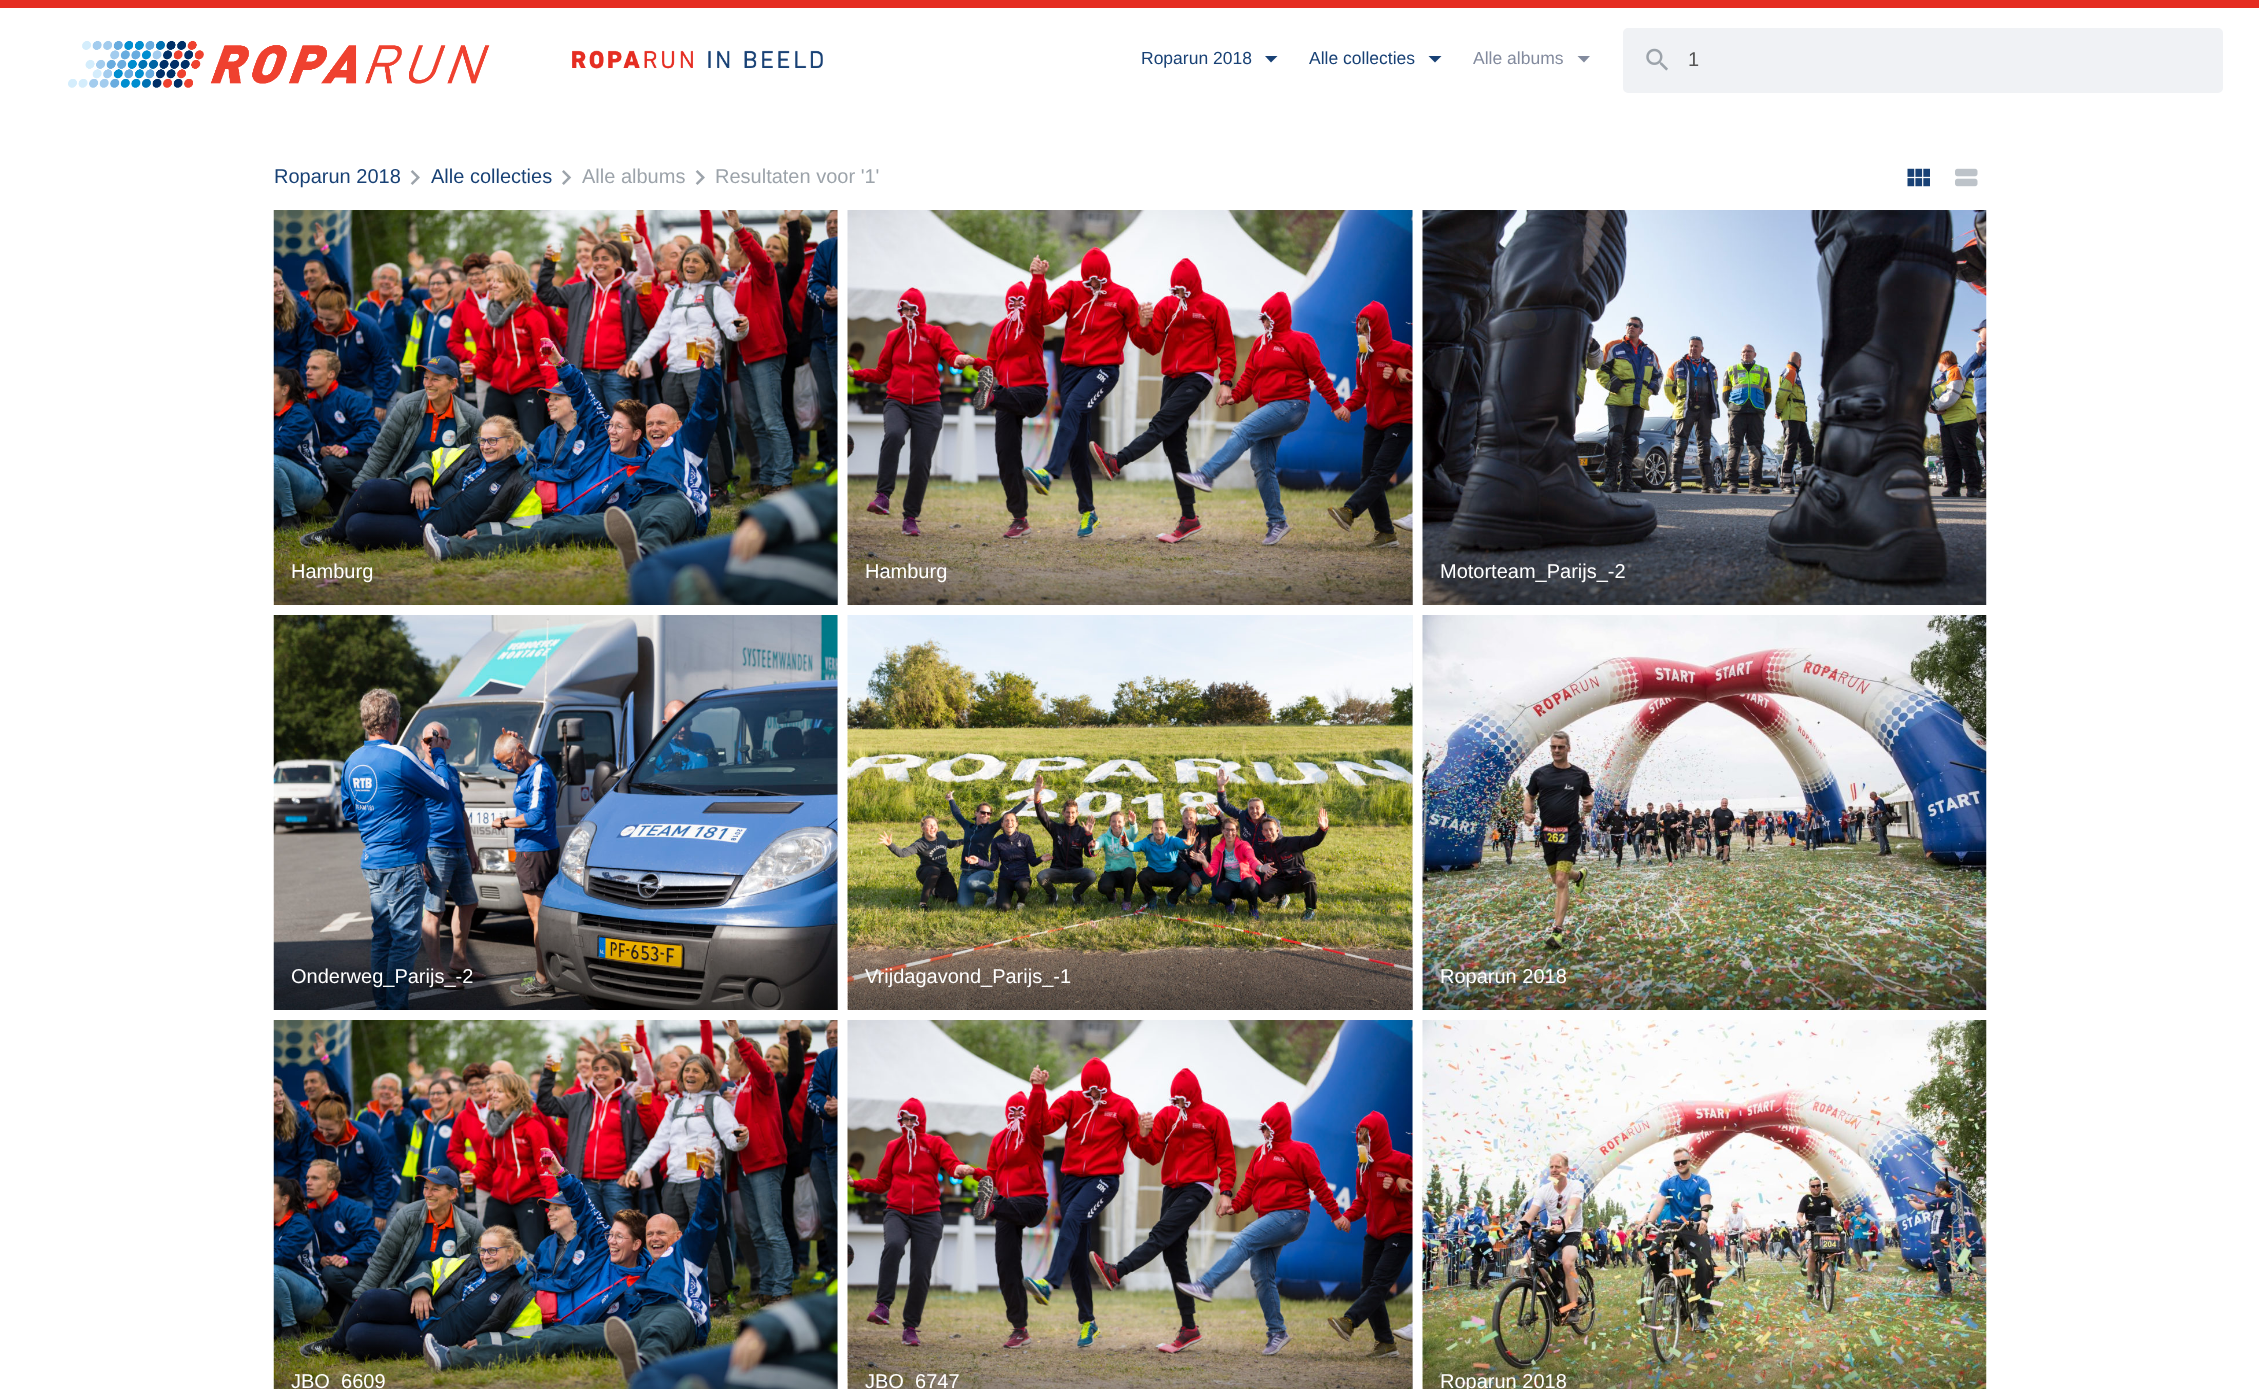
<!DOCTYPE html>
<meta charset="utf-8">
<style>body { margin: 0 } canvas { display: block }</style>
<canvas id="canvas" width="2259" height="1389"></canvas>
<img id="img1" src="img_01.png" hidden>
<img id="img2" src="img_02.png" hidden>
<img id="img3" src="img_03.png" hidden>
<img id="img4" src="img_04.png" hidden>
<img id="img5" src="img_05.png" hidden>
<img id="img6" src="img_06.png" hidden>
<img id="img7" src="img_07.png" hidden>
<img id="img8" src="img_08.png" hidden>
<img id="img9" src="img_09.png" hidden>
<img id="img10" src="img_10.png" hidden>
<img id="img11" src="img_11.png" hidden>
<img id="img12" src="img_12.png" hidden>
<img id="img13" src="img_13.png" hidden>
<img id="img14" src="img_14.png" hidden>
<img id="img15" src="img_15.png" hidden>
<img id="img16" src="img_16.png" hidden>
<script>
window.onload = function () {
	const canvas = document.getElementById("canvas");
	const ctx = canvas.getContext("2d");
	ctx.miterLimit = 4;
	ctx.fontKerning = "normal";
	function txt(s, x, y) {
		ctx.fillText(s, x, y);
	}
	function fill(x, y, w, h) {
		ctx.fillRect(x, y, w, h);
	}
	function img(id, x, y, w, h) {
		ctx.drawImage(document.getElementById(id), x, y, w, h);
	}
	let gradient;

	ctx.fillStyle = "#FFFFFF";
	fill(0, 0, 2259, 1389);
	ctx.fillStyle = "#E52D22";
	fill(0, 0, 2259, 8);
	img("img1", 68, 40, 422, 48);
	img("img2", 572, 50, 251, 19);
	ctx.fillStyle = "#184175";
	ctx.beginPath();
	ctx.moveTo(1265, 56);
	ctx.lineTo(1277.5, 56);
	ctx.lineTo(1271, 62.5);
	ctx.closePath();
	ctx.fill();
	ctx.beginPath();
	ctx.moveTo(1428.5, 56);
	ctx.lineTo(1441.5, 56);
	ctx.lineTo(1435, 62.5);
	ctx.closePath();
	ctx.fill();
	ctx.fillStyle = "#838B9E";
	ctx.beginPath();
	ctx.moveTo(1577.5, 56);
	ctx.lineTo(1590, 56);
	ctx.lineTo(1584, 62.5);
	ctx.closePath();
	ctx.fill();
	ctx.fillStyle = "#F0F2F5";
	ctx.beginPath();
	ctx.roundRect(1624.5, 29.5, 597, 62, 3.5);
	ctx.fill();
	ctx.strokeStyle = "#F0F2F5";
	ctx.lineWidth = 3;
	ctx.stroke();
	img("img3", 1646, 48, 22, 23);
	img("img4", 410, 170, 10, 15);
	img("img5", 562, 170, 10, 15);
	img("img4", 695, 170, 10, 15);
	img("img6", 1907, 168, 23, 19);
	img("img7", 1955, 168, 23, 19);
	fill(837, 210, 1, 395);
	img("img8", 273, 210, 565, 395);
	gradient = ctx.createLinearGradient(556, 525, 556, 605);
	gradient.addColorStop(0, "rgba(0, 0, 0, 0)");
	gradient.addColorStop(1, "rgba(0, 0, 0, 0.4)");
	ctx.fillStyle = gradient;
	fill(274, 529, 564, 76);
	ctx.fillStyle = "#F0F2F5";
	fill(1412, 210, 1, 395);
	img("img9", 847, 210, 566, 395);
	gradient = ctx.createLinearGradient(1130, 525, 1130, 605);
	gradient.addColorStop(0, "rgba(0, 0, 0, 0)");
	gradient.addColorStop(1, "rgba(0, 0, 0, 0.4)");
	ctx.fillStyle = gradient;
	fill(848, 529, 565, 76);
	img("img10", 1422, 210, 565, 395);
	ctx.fillStyle = "#F0F2F5";
	fill(837, 615, 1, 395);
	img("img11", 273, 615, 565, 395);
	gradient = ctx.createLinearGradient(556, 930, 556, 1010);
	gradient.addColorStop(0, "rgba(0, 0, 0, 0)");
	gradient.addColorStop(1, "rgba(0, 0, 0, 0.4)");
	ctx.fillStyle = gradient;
	fill(274, 934, 564, 76);
	ctx.fillStyle = "#F0F2F5";
	fill(1412, 615, 1, 395);
	img("img12", 847, 615, 566, 395);
	gradient = ctx.createLinearGradient(1130, 930, 1130, 1010);
	gradient.addColorStop(0, "rgba(0, 0, 0, 0)");
	gradient.addColorStop(1, "rgba(0, 0, 0, 0.4)");
	ctx.fillStyle = gradient;
	fill(848, 934, 565, 76);
	img("img13", 1422, 615, 565, 395);
	ctx.fillStyle = "#F0F2F5";
	fill(837, 1020, 1, 369);
	img("img14", 273, 1020, 565, 369);
	gradient = ctx.createLinearGradient(556, 1335, 556, 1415);
	gradient.addColorStop(0, "rgba(0, 0, 0, 0)");
	gradient.addColorStop(1, "rgba(0, 0, 0, 0.4)");
	ctx.fillStyle = gradient;
	fill(274, 1339, 564, 50);
	ctx.fillStyle = "#F0F2F5";
	fill(1412, 1020, 1, 369);
	img("img15", 847, 1020, 566, 369);
	gradient = ctx.createLinearGradient(1130, 1335, 1130, 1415);
	gradient.addColorStop(0, "rgba(0, 0, 0, 0)");
	gradient.addColorStop(1, "rgba(0, 0, 0, 0.4)");
	ctx.fillStyle = gradient;
	fill(848, 1339, 565, 50);
	img("img16", 1422, 1020, 565, 369);
	ctx.font = "17.5px Liberation Sans";
	ctx.fillStyle = "#184175";
	txt("Roparun 2018", 1141, 64);
	txt("Alle collecties", 1309, 64);
	ctx.fillStyle = "#838B9E";
	txt("Alle albums", 1473, 64);
	ctx.font = "20px Liberation Sans";
	ctx.fillStyle = "#555555";
	txt("1", 1688, 66);
	ctx.fillStyle = "#184175";
	txt("Roparun 2018", 274, 183);
	txt("Alle collecties", 431, 183);
	ctx.fillStyle = "#9CA3AA";
	txt("Alle albums", 582, 183);
	txt("Resultaten voor '1'", 715, 183);
	ctx.fillStyle = "#FFFFFF";
	txt("Hamburg", 291, 578);
	txt("Hamburg", 865, 578);
	txt("Motorteam_Parijs_-2", 1440, 578);
	txt("Onderweg_Parijs_-2", 291, 983);
	txt("Vrijdagavond_Parijs_-1", 865, 983);
	txt("Roparun 2018", 1440, 983);
	txt("JBO_6609", 291, 1388);
	txt("JBO_6747", 865, 1388);
	txt("Roparun 2018", 1440, 1388);
};
</script>
